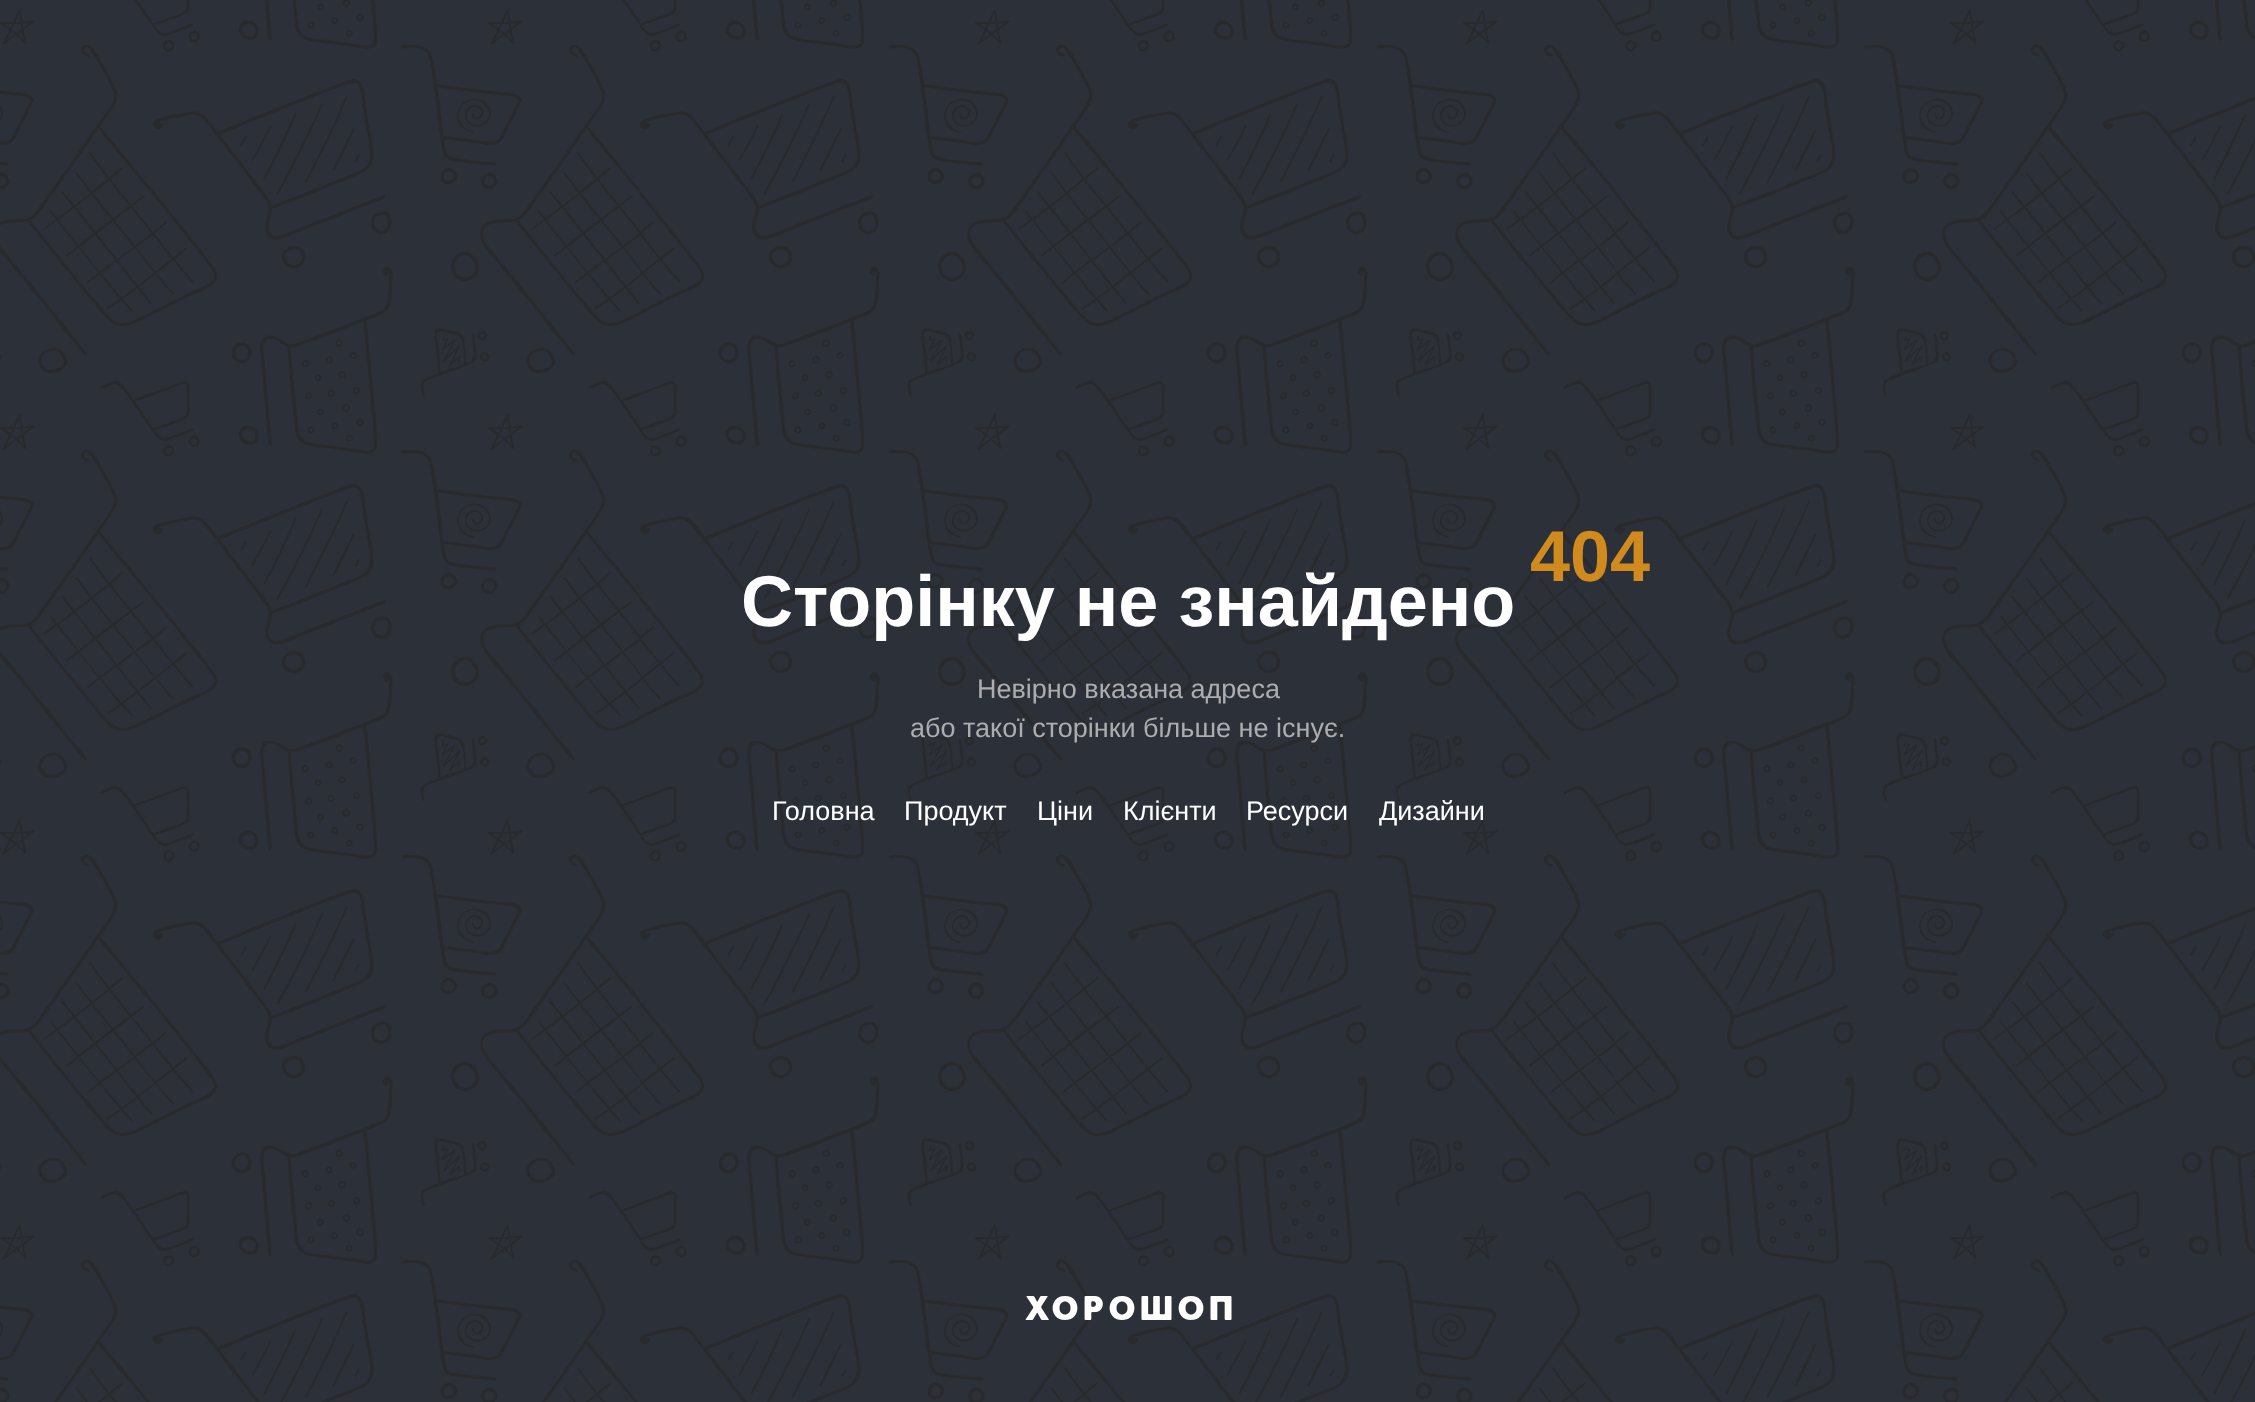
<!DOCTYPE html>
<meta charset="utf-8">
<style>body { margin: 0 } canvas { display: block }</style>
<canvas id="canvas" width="2255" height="1402"></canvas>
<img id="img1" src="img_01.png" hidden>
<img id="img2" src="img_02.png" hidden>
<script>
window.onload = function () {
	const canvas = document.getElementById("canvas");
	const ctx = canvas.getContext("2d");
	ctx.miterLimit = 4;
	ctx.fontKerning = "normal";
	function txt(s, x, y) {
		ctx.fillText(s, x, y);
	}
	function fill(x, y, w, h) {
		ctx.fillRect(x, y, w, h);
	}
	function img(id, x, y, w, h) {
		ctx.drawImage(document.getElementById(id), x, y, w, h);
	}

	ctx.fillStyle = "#2C3139";
	fill(0, 0, 2255, 1402);
	img("img1", 0, 0, 2255, 1402);
	img("img2", 1025, 1296, 207, 24);
	ctx.font = "bold 72px Liberation Sans";
	ctx.fillStyle = "#D08A1D";
	txt("404", 1530, 581);
	ctx.fillStyle = "#FFFFFF";
	txt("Сторінку не знайдено", 741, 626);
	ctx.font = "27px Liberation Sans";
	ctx.fillStyle = "#ACADAF";
	txt("Невірно вказана адреса", 977, 698);
	txt("або такої сторінки більше не існує.", 910, 737);
	ctx.fillStyle = "#FFFFFF";
	txt("Головна", 772, 820);
	txt("Продукт", 904, 820);
	txt("Ціни", 1037, 820);
	txt("Клієнти", 1123, 820);
	txt("Ресурси", 1246, 820);
	txt("Дизайни", 1379, 820);
};
</script>
